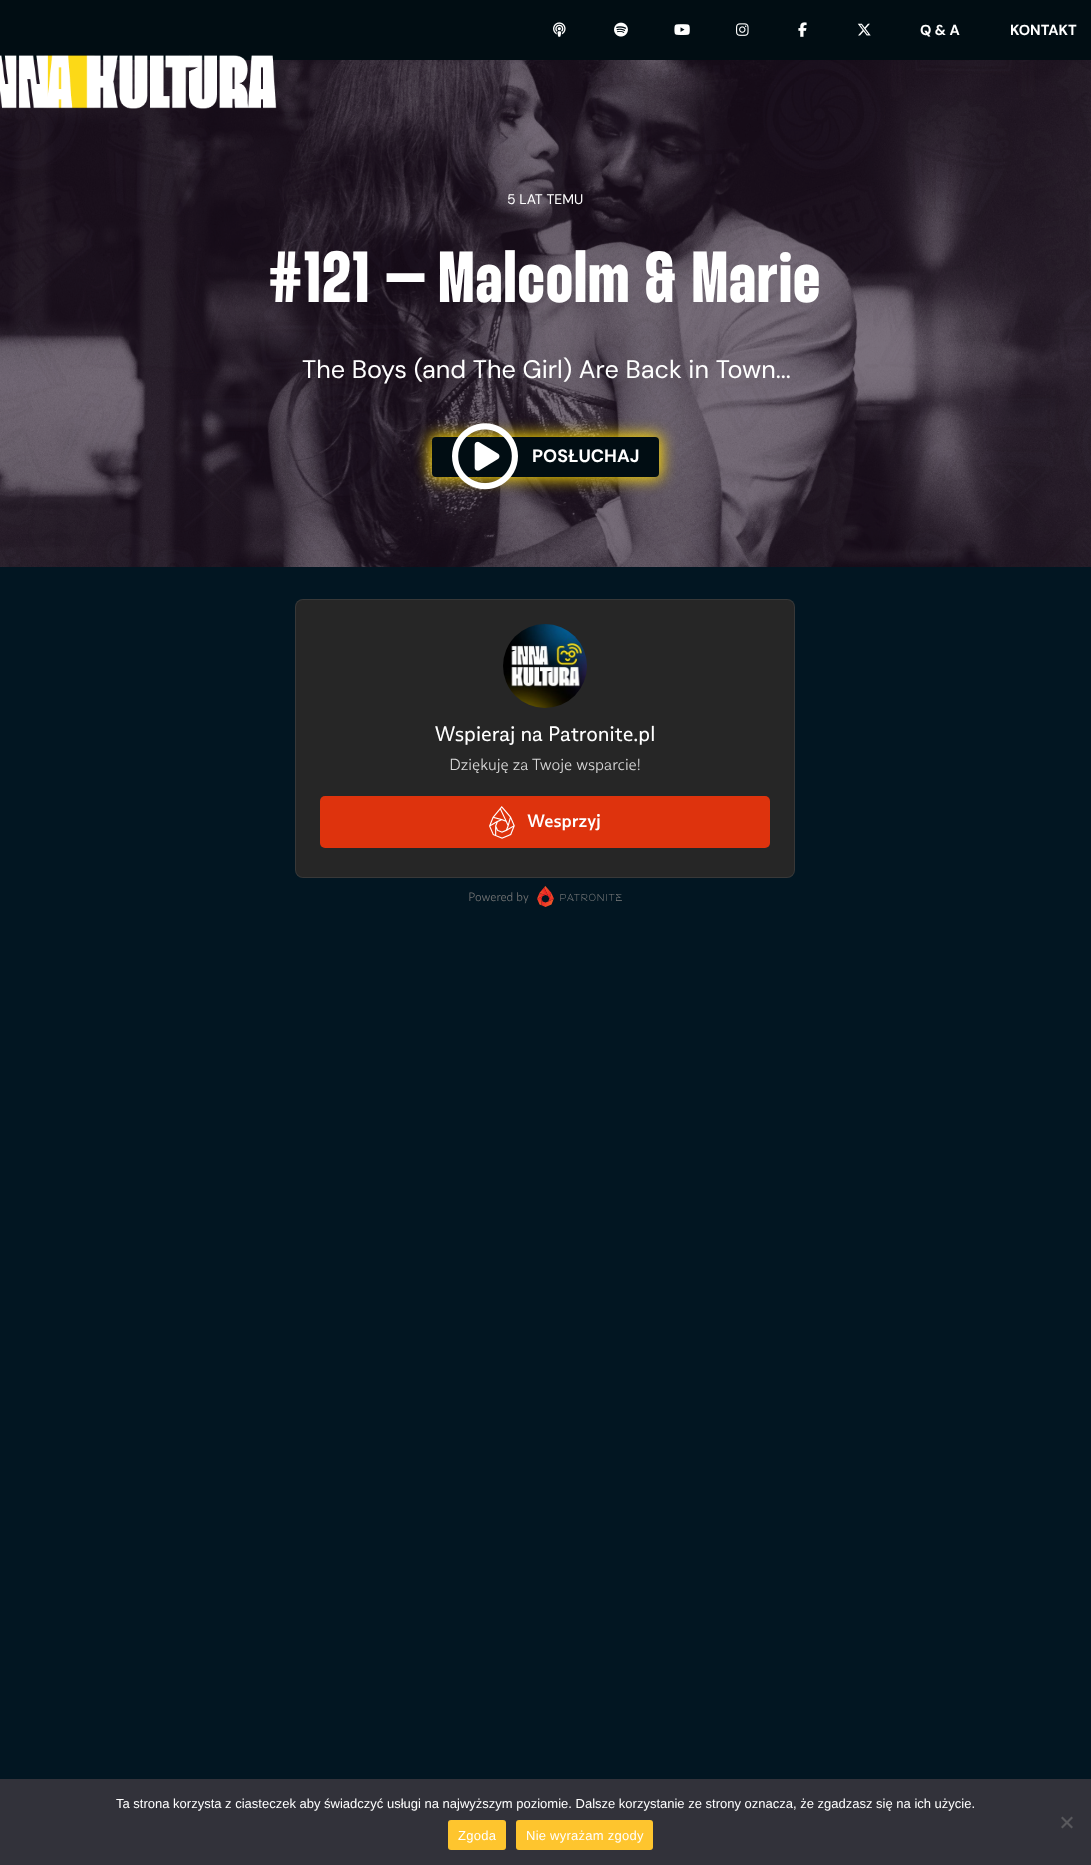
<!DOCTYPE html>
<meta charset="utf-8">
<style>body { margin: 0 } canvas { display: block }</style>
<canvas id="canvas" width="1091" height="1865"></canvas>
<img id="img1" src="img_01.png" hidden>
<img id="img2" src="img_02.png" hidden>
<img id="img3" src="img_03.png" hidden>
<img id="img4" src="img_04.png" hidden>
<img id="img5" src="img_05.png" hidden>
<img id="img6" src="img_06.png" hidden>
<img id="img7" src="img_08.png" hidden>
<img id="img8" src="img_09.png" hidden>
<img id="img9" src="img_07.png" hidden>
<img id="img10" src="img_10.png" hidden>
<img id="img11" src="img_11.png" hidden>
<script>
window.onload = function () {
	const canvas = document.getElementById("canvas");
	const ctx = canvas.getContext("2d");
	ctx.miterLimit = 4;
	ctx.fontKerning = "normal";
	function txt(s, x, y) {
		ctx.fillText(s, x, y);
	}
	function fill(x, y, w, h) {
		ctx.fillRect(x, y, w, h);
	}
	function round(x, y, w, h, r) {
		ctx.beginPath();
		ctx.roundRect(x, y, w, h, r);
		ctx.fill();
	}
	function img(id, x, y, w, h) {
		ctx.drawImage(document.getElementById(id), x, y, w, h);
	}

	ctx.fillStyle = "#021622";
	fill(0, 0, 1091, 1865);
	ctx.fillStyle = "#010D13";
	fill(0, 0, 1091, 60);
	img("img1", 553, 22, 13, 15);
	img("img2", 614, 22, 14, 15);
	img("img3", 674, 24, 16, 11);
	img("img4", 736, 23, 13, 13);
	img("img5", 798, 22, 9, 15);
	img("img6", 857, 23, 14, 13);
	img("img7", 0, 60, 1091, 507);
	img("img8", 0, 60, 1091, 507);
	img("img9", 0, 55, 277, 54);
	ctx.fillStyle = "#FFD902";
	ctx.filter = "blur(7.5px)";
	ctx.beginPath();
	ctx.roundRect(430, 435, 231, 44, 6);
	ctx.fill();
	ctx.filter = "none";
	ctx.fillStyle = "#010D13";
	round(432, 437, 227, 40, 4);
	img("img10", 452, 423, 66, 67);
	img("img11", 295, 599, 500, 308);
	ctx.fillStyle = "#32323A";
	fill(0, 1779, 1091, 86);
	ctx.fillStyle = "#59595D";
	ctx.beginPath();
	ctx.moveTo(1071.5, 1816.5);
	ctx.lineTo(1073, 1818);
	ctx.lineTo(1062.5, 1828.5);
	ctx.lineTo(1061, 1827);
	ctx.closePath();
	ctx.fill();
	ctx.beginPath();
	ctx.moveTo(1061, 1818);
	ctx.lineTo(1062.5, 1816.5);
	ctx.lineTo(1073, 1827);
	ctx.lineTo(1071.5, 1828.5);
	ctx.closePath();
	ctx.fill();
	ctx.fillStyle = "#FEC52E";
	round(448, 1820, 58, 30, 3);
	round(516, 1820, 137, 30, 3);
	ctx.font = "bold 14.5px DM Sans";
	ctx.fillStyle = "#FFFFFF";
	txt("Q & A", 920, 35);
	txt("KONTAKT", 1010, 35);
	ctx.font = "14px DM Sans";
	txt("5 LAT TEMU", 507, 204);
	ctx.letterSpacing = "2px";
	ctx.font = "bold 72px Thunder";
	txt("#121 – Malcolm & Marie", 269, 302);
	ctx.letterSpacing = "0px";
	ctx.font = "25.25px DM Sans";
	txt("The Boys (and The Girl) Are Back in Town...", 302, 378);
	ctx.font = "bold 18px DM Sans";
	txt("POSŁUCHAJ", 532, 462);
	ctx.font = "13px Liberation Sans";
	txt("Ta strona korzysta z ciasteczek aby świadczyć usługi na najwyższym poziomie. Dalsze korzystanie ze strony oznacza, że zgadzasz się na ich użycie.", 116, 1808);
	ctx.letterSpacing = "0.25px";
	txt("Zgoda", 458, 1840);
	txt("Nie wyrażam zgody", 526, 1840);
};
</script>
